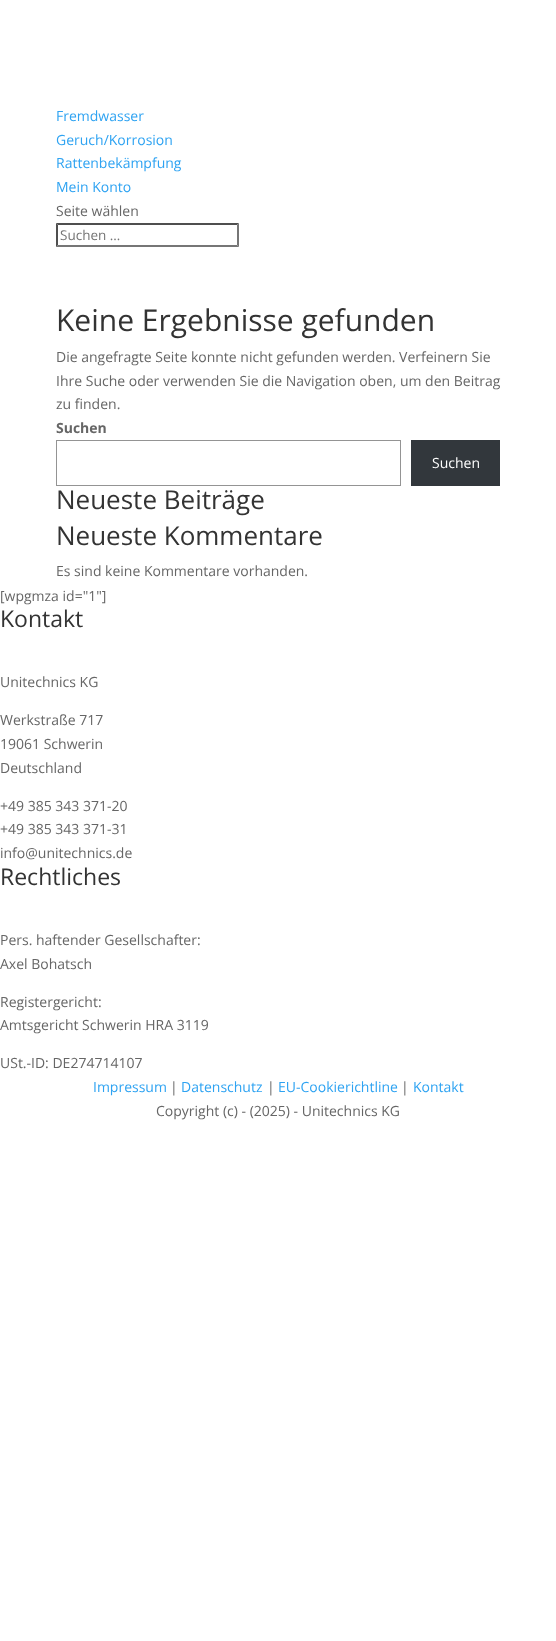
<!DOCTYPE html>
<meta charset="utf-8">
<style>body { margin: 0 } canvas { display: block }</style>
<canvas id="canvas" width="556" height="1641"></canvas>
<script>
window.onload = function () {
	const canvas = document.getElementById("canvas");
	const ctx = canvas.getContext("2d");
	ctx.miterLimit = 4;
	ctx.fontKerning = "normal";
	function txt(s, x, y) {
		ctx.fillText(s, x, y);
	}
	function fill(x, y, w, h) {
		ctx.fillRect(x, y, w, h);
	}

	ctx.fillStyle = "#FFFFFF";
	fill(0, 0, 556, 1641);
	ctx.fillStyle = "#4F4F4F";
	ctx.beginPath();
	ctx.moveTo(56, 223);
	ctx.lineTo(239, 223);
	ctx.lineTo(237, 225);
	ctx.lineTo(58, 225);
	ctx.closePath();
	ctx.fill();
	ctx.fillStyle = "#767676";
	ctx.beginPath();
	ctx.moveTo(239, 223);
	ctx.lineTo(239, 247);
	ctx.lineTo(237, 245);
	ctx.lineTo(237, 225);
	ctx.closePath();
	ctx.fill();
	ctx.beginPath();
	ctx.moveTo(239, 247);
	ctx.lineTo(56, 247);
	ctx.lineTo(58, 245);
	ctx.lineTo(237, 245);
	ctx.closePath();
	ctx.fill();
	ctx.fillStyle = "#4F4F4F";
	ctx.beginPath();
	ctx.moveTo(56, 247);
	ctx.lineTo(56, 223);
	ctx.lineTo(58, 225);
	ctx.lineTo(58, 245);
	ctx.closePath();
	ctx.fill();
	ctx.strokeStyle = "#949494";
	ctx.strokeRect(56.5, 440.5, 344, 45);
	ctx.fillStyle = "#32373C";
	fill(411, 440, 89, 46);
	ctx.font = "14px Open Sans";
	ctx.fillStyle = "#2EA3F2";
	txt("Fremdwasser", 56, 121);
	txt("Geruch/Korrosion", 56, 145);
	txt("Rattenbekämpfung", 56, 168);
	txt("Mein Konto", 56, 192);
	ctx.fillStyle = "#666666";
	txt("Seite wählen", 56, 216);
	ctx.font = "13.5px Open Sans";
	ctx.fillStyle = "#757575";
	txt("Suchen …", 60, 240);
	ctx.font = "30px Open Sans";
	ctx.fillStyle = "#333333";
	txt("Keine Ergebnisse gefunden", 56, 331);
	ctx.font = "14px Open Sans";
	ctx.fillStyle = "#666666";
	txt("Die angefragte Seite konnte nicht gefunden werden. Verfeinern Sie", 56, 362);
	txt("Ihre Suche oder verwenden Sie die Navigation oben, um den Beitrag", 56, 386);
	txt("zu finden.", 56, 409);
	ctx.font = "bold 14px Open Sans";
	txt("Suchen", 56, 433);
	ctx.font = "14px Open Sans";
	ctx.fillStyle = "#FFFFFF";
	txt("Suchen", 432, 468);
	ctx.font = "26px Open Sans";
	ctx.fillStyle = "#333333";
	txt("Neueste Beiträge", 56, 509);
	txt("Neueste Kommentare", 56, 545);
	ctx.font = "14px Open Sans";
	ctx.fillStyle = "#666666";
	txt("Es sind keine Kommentare vorhanden.", 56, 576);
	txt("[wpgmza id=\"1\"]", 0, 601);
	ctx.font = "23px Open Sans";
	ctx.fillStyle = "#333333";
	txt("Kontakt", 0, 627);
	ctx.font = "14px Open Sans";
	ctx.fillStyle = "#666666";
	txt("Unitechnics KG", 0, 687);
	txt("Werkstraße 717", 0, 725);
	txt("19061 Schwerin", 0, 749);
	txt("Deutschland", 0, 773);
	txt("+49 385 343 371-20", 0, 811);
	txt("+49 385 343 371-31", 0, 834);
	txt("info@unitechnics.de", 0, 858);
	ctx.font = "23px Open Sans";
	ctx.fillStyle = "#333333";
	txt("Rechtliches", 0, 885);
	ctx.font = "14px Open Sans";
	ctx.fillStyle = "#666666";
	txt("Pers. haftender Gesellschafter:", 0, 945);
	txt("Axel Bohatsch", 0, 969);
	txt("Registergericht:", 0, 1007);
	txt("Amtsgericht Schwerin HRA 3119", 0, 1030);
	txt("USt.-ID: DE274714107", 0, 1068);
	ctx.fillStyle = "#2EA3F2";
	txt("Impressum", 93, 1092);
	ctx.fillStyle = "#666666";
	txt("|", 170, 1092);
	ctx.fillStyle = "#2EA3F2";
	txt("Datenschutz", 181, 1092);
	ctx.fillStyle = "#666666";
	txt("|", 267, 1092);
	ctx.fillStyle = "#2EA3F2";
	txt("EU-Cookierichtline", 278, 1092);
	ctx.fillStyle = "#666666";
	txt("|", 401, 1092);
	ctx.fillStyle = "#2EA3F2";
	txt("Kontakt", 413, 1092);
	ctx.fillStyle = "#666666";
	txt("Copyright (c) - (2025) - Unitechnics KG", 156, 1116);
};
</script>
